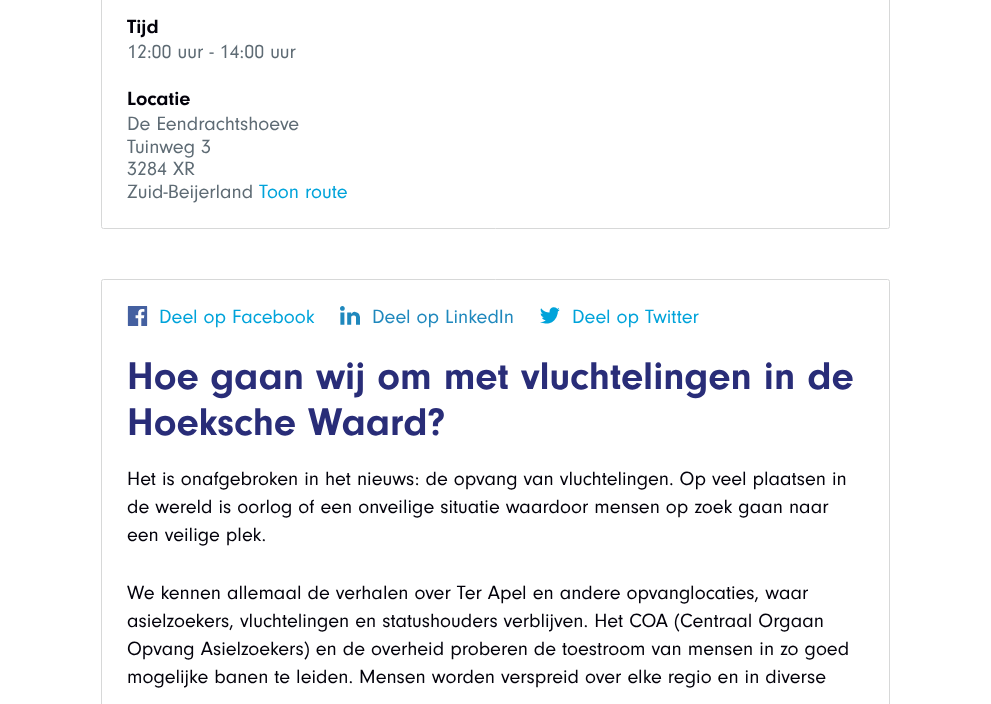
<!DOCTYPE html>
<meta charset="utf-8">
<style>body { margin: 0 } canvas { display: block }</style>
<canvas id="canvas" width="991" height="704"></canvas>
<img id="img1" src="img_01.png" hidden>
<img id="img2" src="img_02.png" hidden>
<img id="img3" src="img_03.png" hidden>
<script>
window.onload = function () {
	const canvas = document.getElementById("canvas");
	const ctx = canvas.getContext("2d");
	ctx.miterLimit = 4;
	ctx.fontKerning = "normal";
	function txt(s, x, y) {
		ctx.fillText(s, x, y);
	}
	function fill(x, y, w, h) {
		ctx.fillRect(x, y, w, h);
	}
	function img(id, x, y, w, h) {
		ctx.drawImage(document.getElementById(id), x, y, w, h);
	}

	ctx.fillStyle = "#FFFFFF";
	fill(0, 0, 991, 704);
	ctx.beginPath();
	ctx.roundRect(101.5, -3.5, 788, 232, 2);
	ctx.strokeStyle = "#D7D8D8";
	ctx.stroke();
	ctx.beginPath();
	ctx.roundRect(101.5, 279.5, 788, 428, 2);
	ctx.stroke();
	img("img1", 127, 306, 21, 20);
	img("img2", 340, 306, 20, 19);
	img("img3", 540, 307, 20, 17);
	ctx.font = "bold 20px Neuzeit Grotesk";
	ctx.fillStyle = "#02010A";
	txt("Tijd", 127, 33);
	ctx.font = "20px Neuzeit Grotesk";
	ctx.fillStyle = "#5E6B74";
	txt("12:00 uur - 14:00 uur", 127, 58);
	ctx.font = "bold 20px Neuzeit Grotesk";
	ctx.fillStyle = "#02010A";
	txt("Locatie", 127, 105);
	ctx.font = "20px Neuzeit Grotesk";
	ctx.fillStyle = "#5E6B74";
	txt("De Eendrachtshoeve", 127, 130);
	txt("Tuinweg 3", 127, 153);
	txt("3284 XR", 127, 175);
	txt("Zuid-Beijerland", 127, 198);
	ctx.fillStyle = "#00A3DA";
	txt("Toon route", 259, 198);
	txt("Deel op Facebook", 159, 323);
	ctx.fillStyle = "#1F88BD";
	txt("Deel op LinkedIn", 372, 323);
	ctx.fillStyle = "#00A3DA";
	txt("Deel op Twitter", 572, 323);
	ctx.font = "bold 40px Neuzeit Grotesk";
	ctx.fillStyle = "#292D78";
	txt("Hoe gaan wij om met vluchtelingen in de", 127, 389);
	txt("Hoeksche Waard?", 127, 435);
	ctx.font = "20px Neuzeit Grotesk";
	ctx.fillStyle = "#02010A";
	txt("Het is onafgebroken in het nieuws: de opvang van vluchtelingen. Op veel plaatsen in", 127, 485);
	txt("de wereld is oorlog of een onveilige situatie waardoor mensen op zoek gaan naar", 127, 513);
	txt("een veilige plek.", 127, 541);
	txt("We kennen allemaal de verhalen over Ter Apel en andere opvanglocaties, waar", 127, 599);
	txt("asielzoekers, vluchtelingen en statushouders verblijven. Het COA (Centraal Orgaan", 127, 627);
	txt("Opvang Asielzoekers) en de overheid proberen de toestroom van mensen in zo goed", 127, 655);
	txt("mogelijke banen te leiden. Mensen worden verspreid over elke regio en in diverse", 127, 683);
};
</script>
